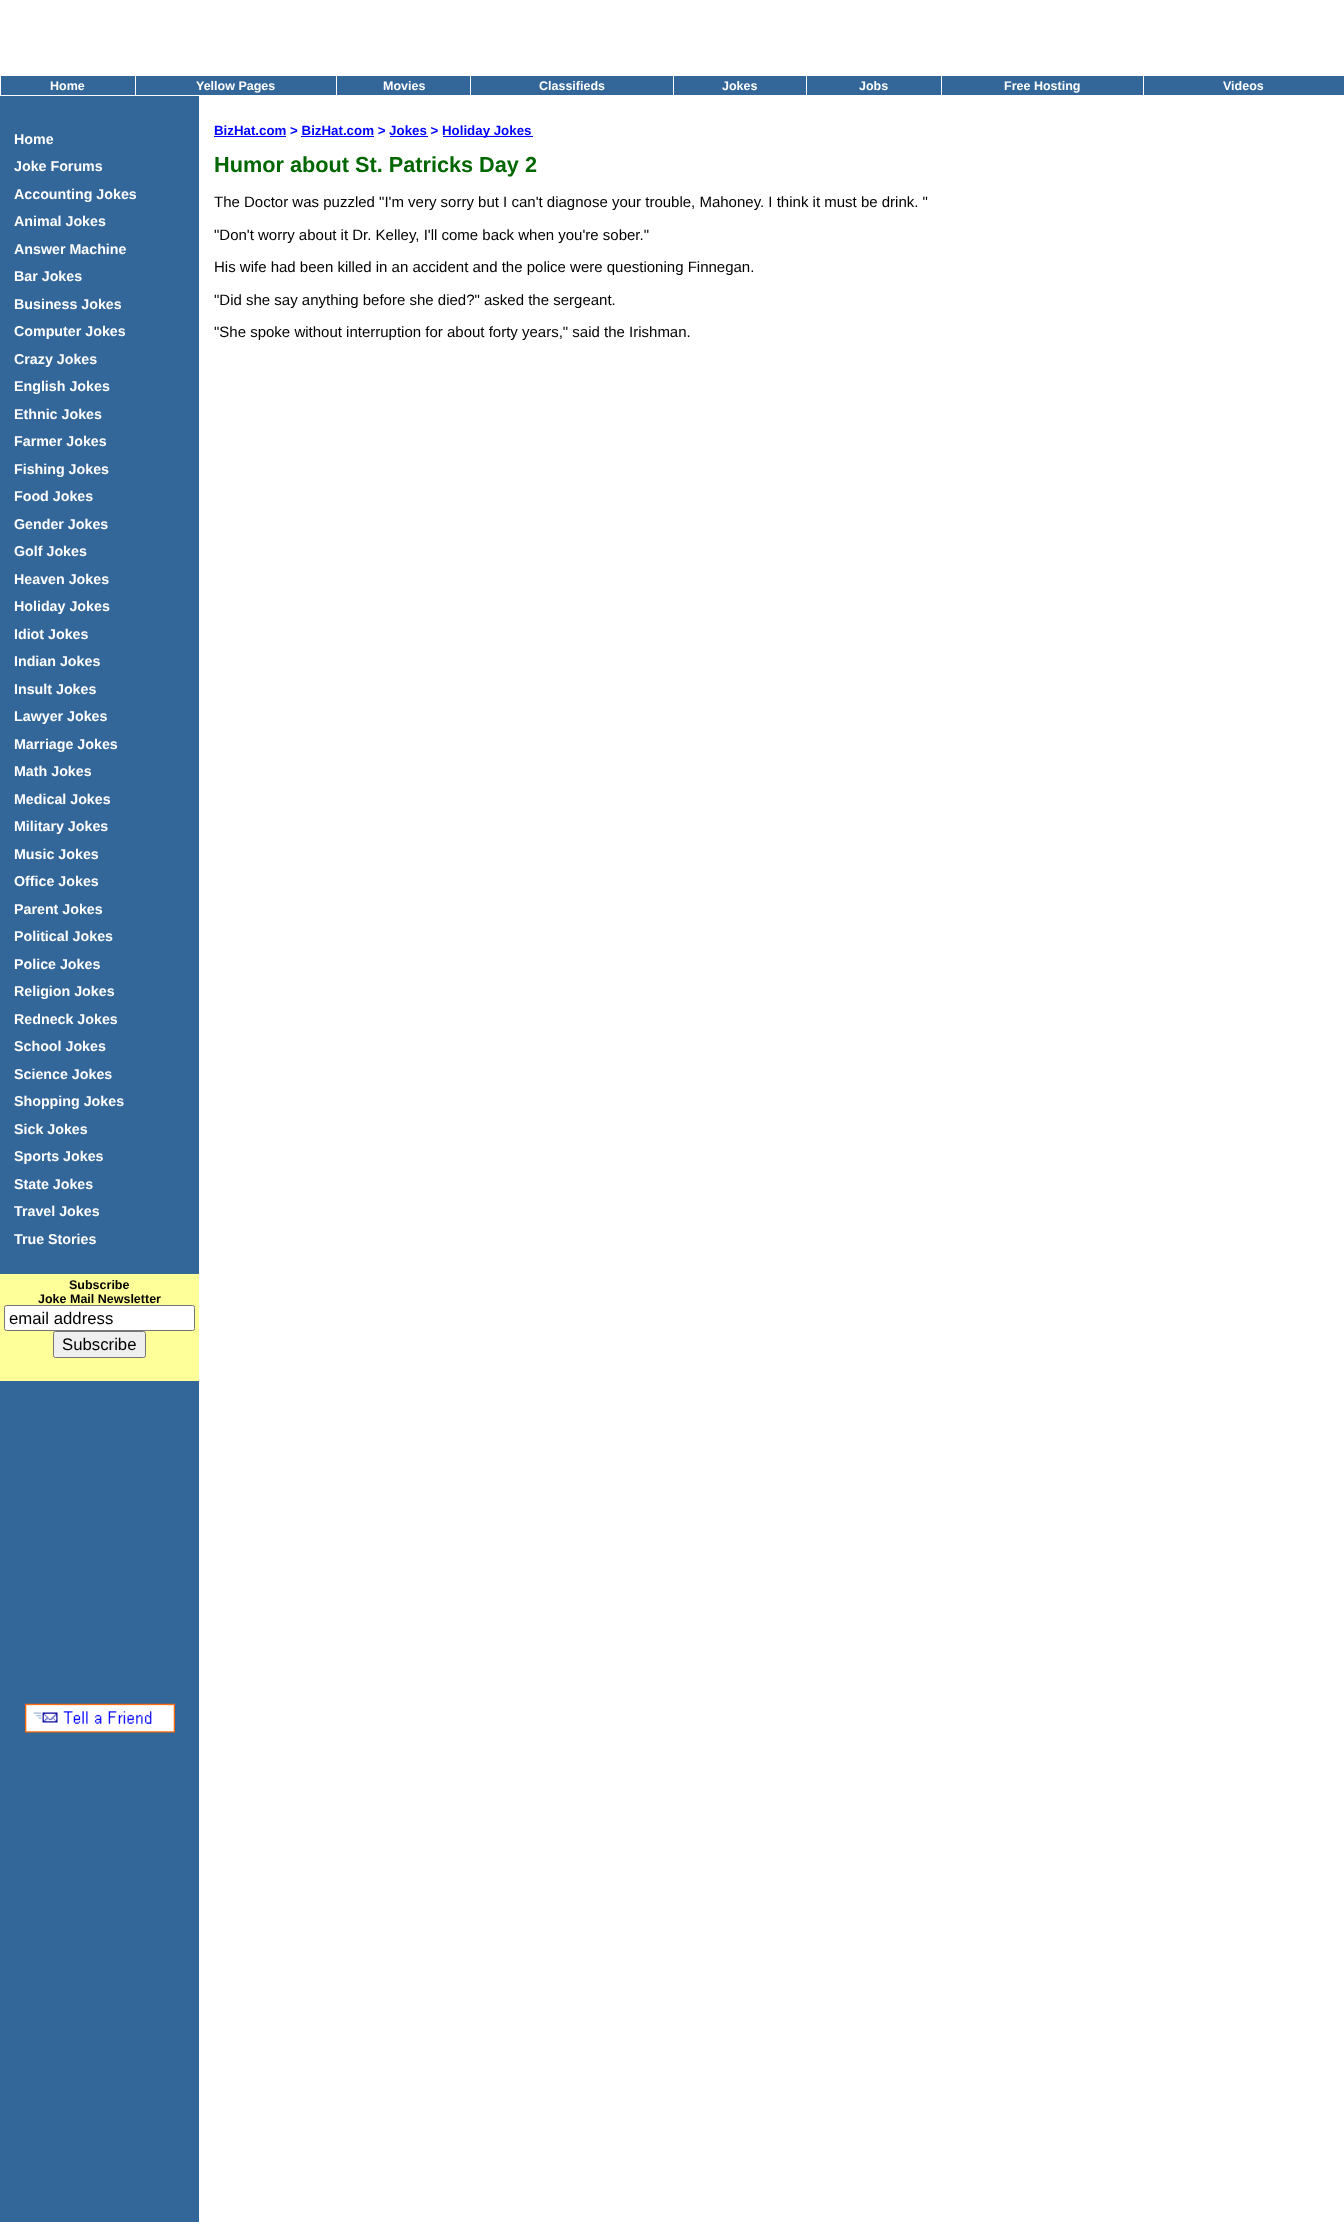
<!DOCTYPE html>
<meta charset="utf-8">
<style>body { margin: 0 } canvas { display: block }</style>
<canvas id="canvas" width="1344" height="2222"></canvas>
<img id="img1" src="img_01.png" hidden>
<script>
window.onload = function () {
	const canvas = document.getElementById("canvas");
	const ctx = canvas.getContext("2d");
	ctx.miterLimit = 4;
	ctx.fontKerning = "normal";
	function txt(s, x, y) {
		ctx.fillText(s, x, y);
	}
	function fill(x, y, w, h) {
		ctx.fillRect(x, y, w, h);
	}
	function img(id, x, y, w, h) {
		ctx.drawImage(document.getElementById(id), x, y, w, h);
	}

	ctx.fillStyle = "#FFFFFF";
	fill(0, 0, 1344, 2222);
	ctx.fillStyle = "#336699";
	fill(1, 76, 1343, 19);
	ctx.fillStyle = "#FFFFFF";
	fill(135, 75, 1, 21);
	fill(336, 75, 1, 21);
	fill(470, 75, 1, 21);
	fill(673, 75, 1, 21);
	fill(806, 75, 1, 21);
	fill(941, 75, 1, 21);
	fill(1143, 75, 1, 21);
	ctx.fillStyle = "#336699";
	fill(0, 96, 199, 2126);
	ctx.fillStyle = "#FFFF99";
	fill(0, 1274, 199, 107);
	ctx.fillStyle = "#FFFFFF";
	ctx.beginPath();
	ctx.roundRect(4.5, 1305.5, 190, 25, 2);
	ctx.fill();
	ctx.strokeStyle = "#767676";
	ctx.stroke();
	ctx.fillStyle = "#EFEFEF";
	ctx.beginPath();
	ctx.roundRect(53.5, 1331.5, 92, 26, 2);
	ctx.fill();
	ctx.stroke();
	img("img1", 25, 1703, 150, 30);
	ctx.fillStyle = "#0000FF";
	fill(214, 136, 72, 1);
	fill(301, 136, 73, 1);
	fill(390, 136, 38, 1);
	fill(443, 136, 90, 1);
	ctx.font = "bold 12.5px Liberation Sans";
	ctx.fillStyle = "#FFFFFF";
	txt("Home", 50, 90);
	txt("Yellow Pages", 196, 90);
	txt("Movies", 383, 90);
	txt("Classifieds", 539, 90);
	txt("Jokes", 722, 90);
	txt("Jobs", 859, 90);
	txt("Free Hosting", 1004, 90);
	txt("Videos", 1223, 90);
	ctx.font = "bold 14.25px Liberation Sans";
	txt("Home", 14, 144);
	txt("Joke Forums", 14, 171);
	txt("Accounting Jokes", 14, 199);
	txt("Animal Jokes", 14, 226);
	txt("Answer Machine", 14, 254);
	txt("Bar Jokes", 14, 281);
	txt("Business Jokes", 14, 309);
	txt("Computer Jokes", 14, 336);
	txt("Crazy Jokes", 14, 364);
	txt("English Jokes", 14, 391);
	txt("Ethnic Jokes", 14, 419);
	txt("Farmer Jokes", 14, 446);
	txt("Fishing Jokes", 14, 474);
	txt("Food Jokes", 14, 501);
	txt("Gender Jokes", 14, 529);
	txt("Golf Jokes", 14, 556);
	txt("Heaven Jokes", 14, 584);
	txt("Holiday Jokes", 14, 611);
	txt("Idiot Jokes", 14, 639);
	txt("Indian Jokes", 14, 666);
	txt("Insult Jokes", 14, 694);
	txt("Lawyer Jokes", 14, 721);
	txt("Marriage Jokes", 14, 749);
	txt("Math Jokes", 14, 776);
	txt("Medical Jokes", 14, 804);
	txt("Military Jokes", 14, 831);
	txt("Music Jokes", 14, 859);
	txt("Office Jokes", 14, 886);
	txt("Parent Jokes", 14, 914);
	txt("Political Jokes", 14, 941);
	txt("Police Jokes", 14, 969);
	txt("Religion Jokes", 14, 996);
	txt("Redneck Jokes", 14, 1024);
	txt("School Jokes", 14, 1051);
	txt("Science Jokes", 14, 1079);
	txt("Shopping Jokes", 14, 1106);
	txt("Sick Jokes", 14, 1134);
	txt("Sports Jokes", 14, 1161);
	txt("State Jokes", 14, 1189);
	txt("Travel Jokes", 14, 1216);
	txt("True Stories", 14, 1244);
	ctx.font = "bold 12.5px Liberation Sans";
	ctx.fillStyle = "#000000";
	txt("Subscribe", 69, 1289);
	txt("Joke Mail Newsletter", 38, 1303);
	ctx.font = "16.75px Liberation Sans";
	txt("email address", 9, 1324);
	txt("Subscribe", 62, 1350);
	ctx.font = "bold 13.3px Liberation Sans";
	ctx.fillStyle = "#0000FF";
	txt("BizHat.com > BizHat.com > Jokes >", 214, 135);
	txt("Holiday Jokes", 442, 135);
	ctx.font = "bold 21.7px Liberation Sans";
	ctx.fillStyle = "#006600";
	txt("Humor about St. Patricks Day 2", 214, 172);
	ctx.font = "15px Liberation Sans";
	ctx.fillStyle = "#000000";
	txt("The Doctor was puzzled \"I'm very sorry but I can't diagnose your trouble, Mahoney. I think it must be drink. \"", 214, 207);
	txt("\"Don't worry about it Dr. Kelley, I'll come back when you're sober.\"", 214, 240);
	txt("His wife had been killed in an accident and the police were questioning Finnegan.", 214, 272);
	txt("\"Did she say anything before she died?\" asked the sergeant.", 214, 305);
	txt("\"She spoke without interruption for about forty years,\" said the Irishman.", 214, 337);
};
</script>
